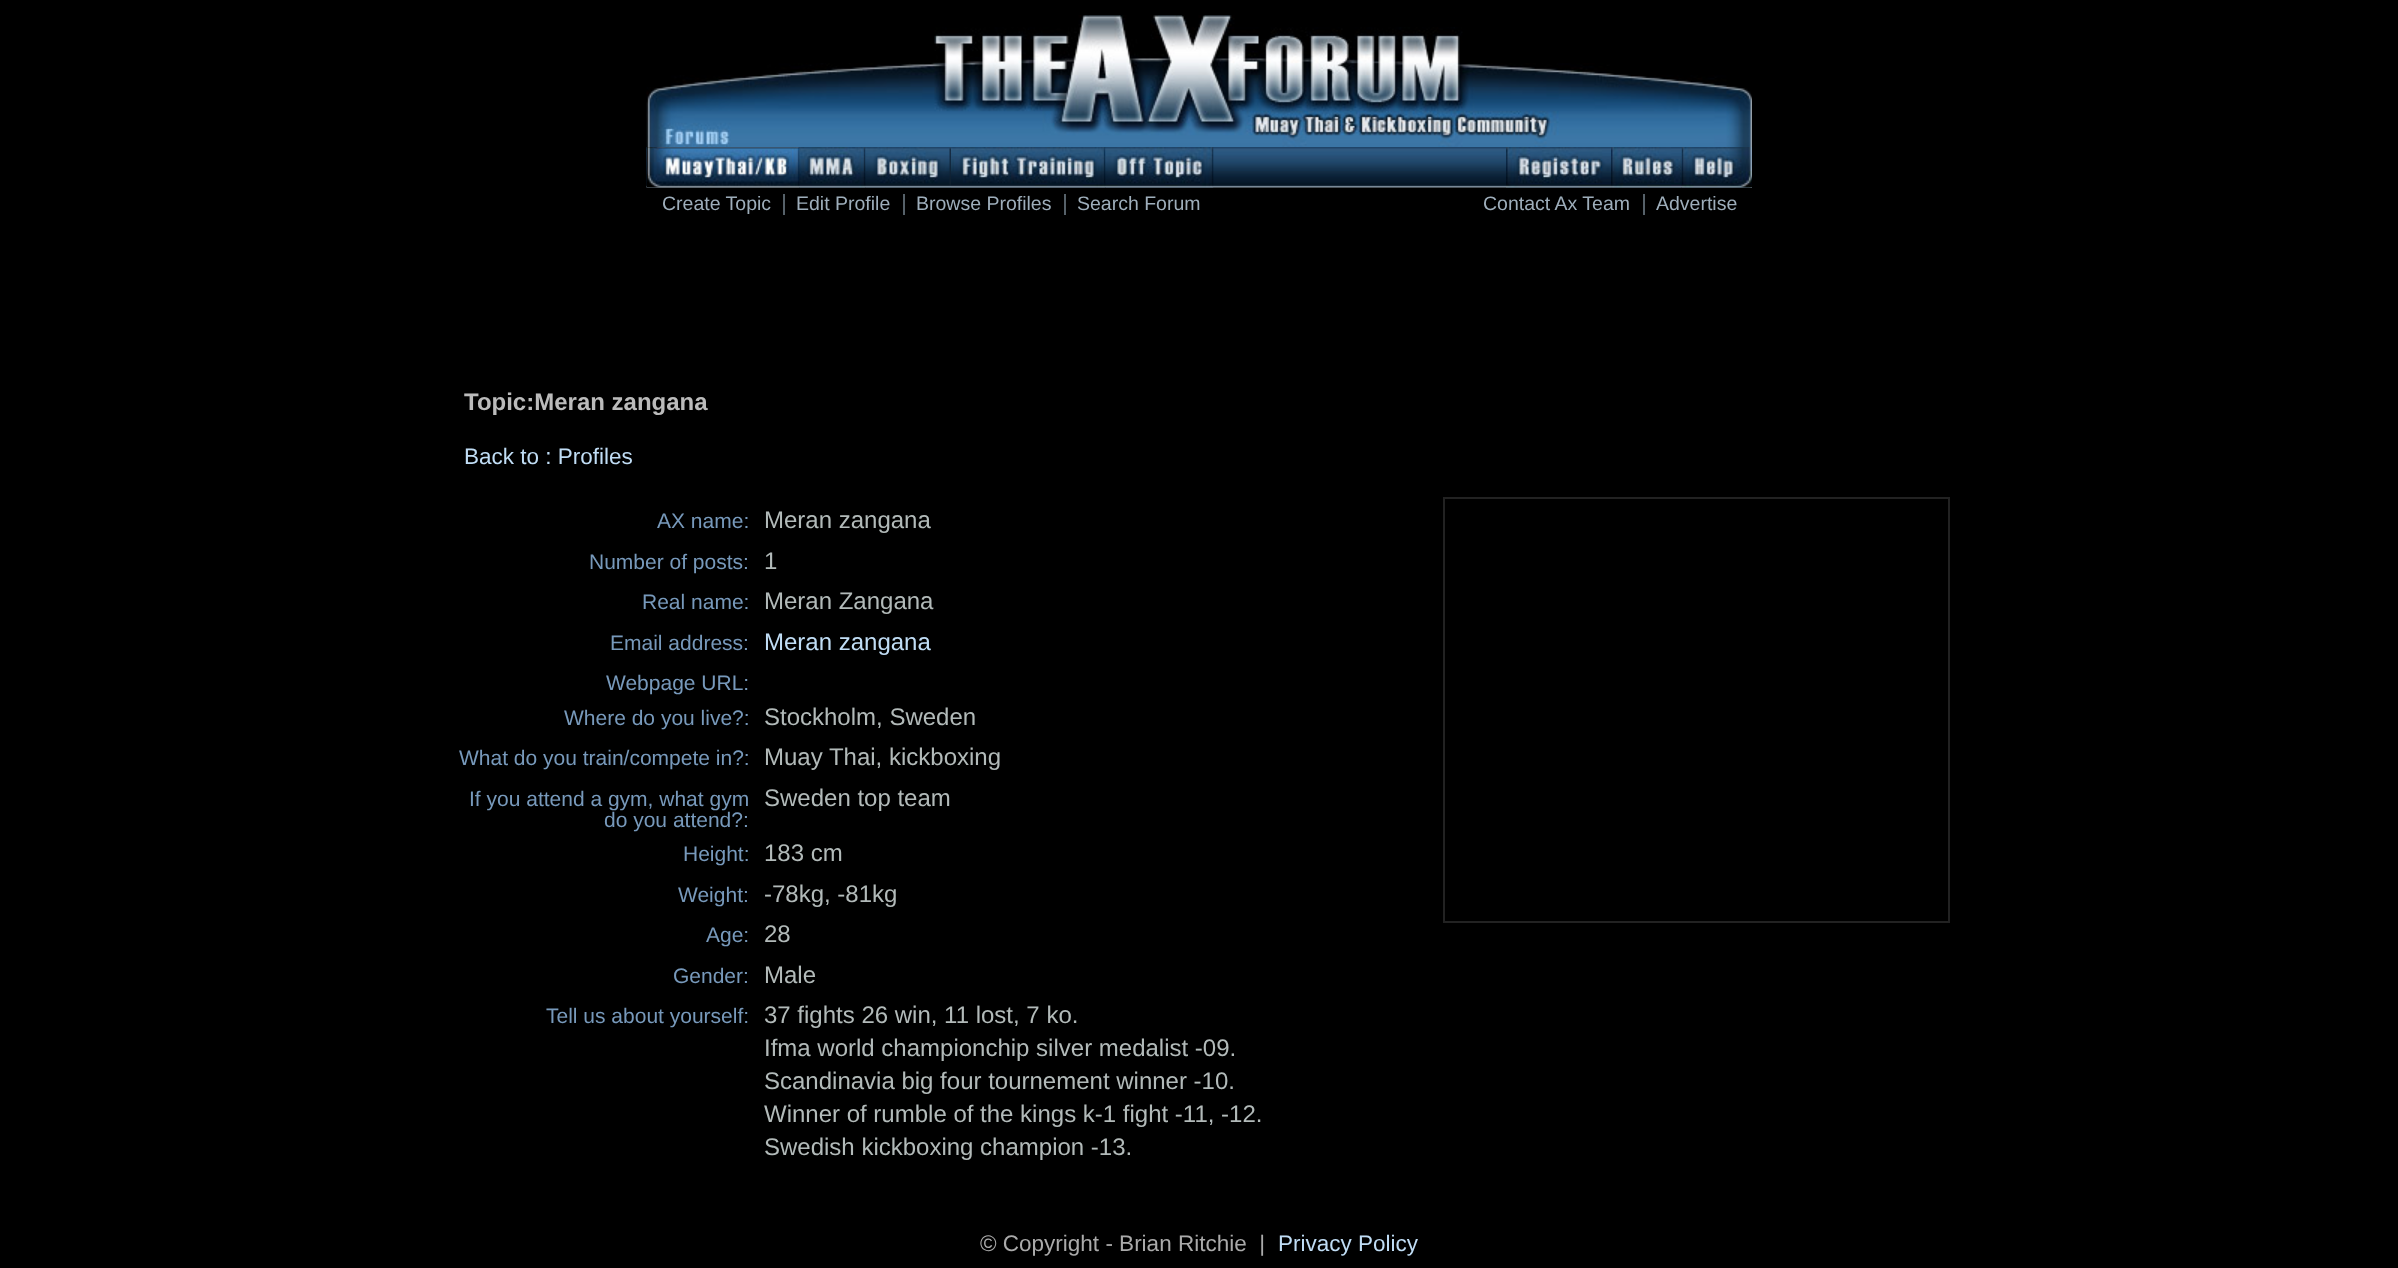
<!DOCTYPE html>
<meta charset="utf-8">
<style>body { margin: 0 } canvas { display: block }</style>
<canvas id="canvas" width="2398" height="1268"></canvas>
<img id="img1" src="img_01.png" hidden>
<img id="img2" src="img_02.png" hidden>
<img id="img3" src="img_03.png" hidden>
<img id="img4" src="img_04.png" hidden>
<img id="img5" src="img_05.png" hidden>
<img id="img6" src="img_06.png" hidden>
<img id="img7" src="img_07.png" hidden>
<img id="img8" src="img_08.png" hidden>
<img id="img9" src="img_10.png" hidden>
<img id="img10" src="img_09.png" hidden>
<script>
window.onload = function () {
	const canvas = document.getElementById("canvas");
	const ctx = canvas.getContext("2d");
	ctx.miterLimit = 4;
	ctx.fontKerning = "normal";
	function txt(s, x, y) {
		ctx.fillText(s, x, y);
	}
	function fill(x, y, w, h) {
		ctx.fillRect(x, y, w, h);
	}
	function img(id, x, y, w, h) {
		ctx.drawImage(document.getElementById(id), x, y, w, h);
	}

	ctx.fillStyle = "#000000";
	fill(0, 0, 2398, 1268);
	img("img1", 646, 15, 1106, 132);
	img("img2", 646, 147, 1106, 41);
	img("img3", 646, 147, 154, 41);
	img("img4", 799, 147, 67, 41);
	img("img5", 865, 147, 86, 41);
	img("img6", 951, 147, 155, 41);
	img("img7", 1105, 147, 109, 41);
	img("img8", 1506, 147, 105, 41);
	img("img9", 1681, 147, 71, 41);
	img("img10", 1611, 147, 71, 41);
	ctx.fillStyle = "#566169";
	fill(783, 194, 2, 21);
	fill(903, 194, 2, 21);
	fill(1064, 194, 2, 21);
	fill(1643, 194, 2, 21);
	ctx.strokeStyle = "#222222";
	ctx.lineWidth = 2;
	ctx.strokeRect(1444, 498, 505, 424);
	ctx.font = "19.5px Liberation Sans";
	ctx.fillStyle = "#9EAEBB";
	txt("Create Topic", 662, 210);
	txt("Edit Profile", 796, 210);
	txt("Browse Profiles", 916, 210);
	txt("Search Forum", 1077, 210);
	txt("Contact Ax Team", 1483, 210);
	txt("Advertise", 1656, 210);
	ctx.font = "bold 24px Liberation Sans";
	ctx.fillStyle = "#BBBBBB";
	txt("Topic:Meran zangana", 464, 410);
	ctx.font = "22.5px Liberation Sans";
	ctx.fillStyle = "#C0DDF5";
	txt("Back to : Profiles", 464, 464);
	ctx.font = "21px Liberation Sans";
	ctx.fillStyle = "#7799BB";
	txt("AX name:", 657, 528);
	ctx.font = "24px Liberation Sans";
	ctx.fillStyle = "#B2BAB9";
	txt("Meran zangana", 764, 528);
	ctx.font = "21px Liberation Sans";
	ctx.fillStyle = "#7799BB";
	txt("Number of posts:", 589, 569);
	ctx.font = "24px Liberation Sans";
	ctx.fillStyle = "#B2BAB9";
	txt("1", 764, 569);
	ctx.font = "21px Liberation Sans";
	ctx.fillStyle = "#7799BB";
	txt("Real name:", 642, 609);
	ctx.font = "24px Liberation Sans";
	ctx.fillStyle = "#B2BAB9";
	txt("Meran Zangana", 764, 609);
	ctx.font = "21px Liberation Sans";
	ctx.fillStyle = "#7799BB";
	txt("Email address:", 610, 650);
	ctx.font = "24px Liberation Sans";
	ctx.fillStyle = "#C0DDF5";
	txt("Meran zangana", 764, 650);
	ctx.font = "21px Liberation Sans";
	ctx.fillStyle = "#7799BB";
	txt("Webpage URL:", 606, 690);
	txt("Where do you live?:", 564, 725);
	ctx.font = "24px Liberation Sans";
	ctx.fillStyle = "#B2BAB9";
	txt("Stockholm, Sweden", 764, 725);
	ctx.font = "21px Liberation Sans";
	ctx.fillStyle = "#7799BB";
	txt("What do you train/compete in?:", 459, 765);
	ctx.font = "24px Liberation Sans";
	ctx.fillStyle = "#B2BAB9";
	txt("Muay Thai, kickboxing", 764, 765);
	ctx.font = "21px Liberation Sans";
	ctx.fillStyle = "#7799BB";
	txt("If you attend a gym, what gym", 469, 806);
	txt("do you attend?:", 604, 827);
	ctx.font = "24px Liberation Sans";
	ctx.fillStyle = "#B2BAB9";
	txt("Sweden top team", 764, 806);
	ctx.font = "21px Liberation Sans";
	ctx.fillStyle = "#7799BB";
	txt("Height:", 683, 861);
	ctx.font = "24px Liberation Sans";
	ctx.fillStyle = "#B2BAB9";
	txt("183 cm", 764, 861);
	ctx.font = "21px Liberation Sans";
	ctx.fillStyle = "#7799BB";
	txt("Weight:", 678, 902);
	ctx.font = "24px Liberation Sans";
	ctx.fillStyle = "#B2BAB9";
	txt("-78kg, -81kg", 764, 902);
	ctx.font = "21px Liberation Sans";
	ctx.fillStyle = "#7799BB";
	txt("Age:", 706, 942);
	ctx.font = "24px Liberation Sans";
	ctx.fillStyle = "#B2BAB9";
	txt("28", 764, 942);
	ctx.font = "21px Liberation Sans";
	ctx.fillStyle = "#7799BB";
	txt("Gender:", 673, 983);
	ctx.font = "24px Liberation Sans";
	ctx.fillStyle = "#B2BAB9";
	txt("Male", 764, 983);
	ctx.font = "21px Liberation Sans";
	ctx.fillStyle = "#7799BB";
	txt("Tell us about yourself:", 546, 1023);
	ctx.font = "24px Liberation Sans";
	ctx.fillStyle = "#B2BAB9";
	txt("37 fights 26 win, 11 lost, 7 ko.", 764, 1023);
	txt("Ifma world championchip silver medalist -09.", 764, 1056);
	txt("Scandinavia big four tournement winner -10.", 764, 1089);
	txt("Winner of rumble of the kings k-1 fight -11, -12.", 764, 1122);
	txt("Swedish kickboxing champion -13.", 764, 1155);
	ctx.font = "22.5px Liberation Sans";
	ctx.fillStyle = "#AAAAAA";
	txt("© Copyright - Brian Ritchie  |", 980, 1251);
	ctx.fillStyle = "#C0DDF5";
	txt("Privacy Policy", 1278, 1251);
};
</script>
